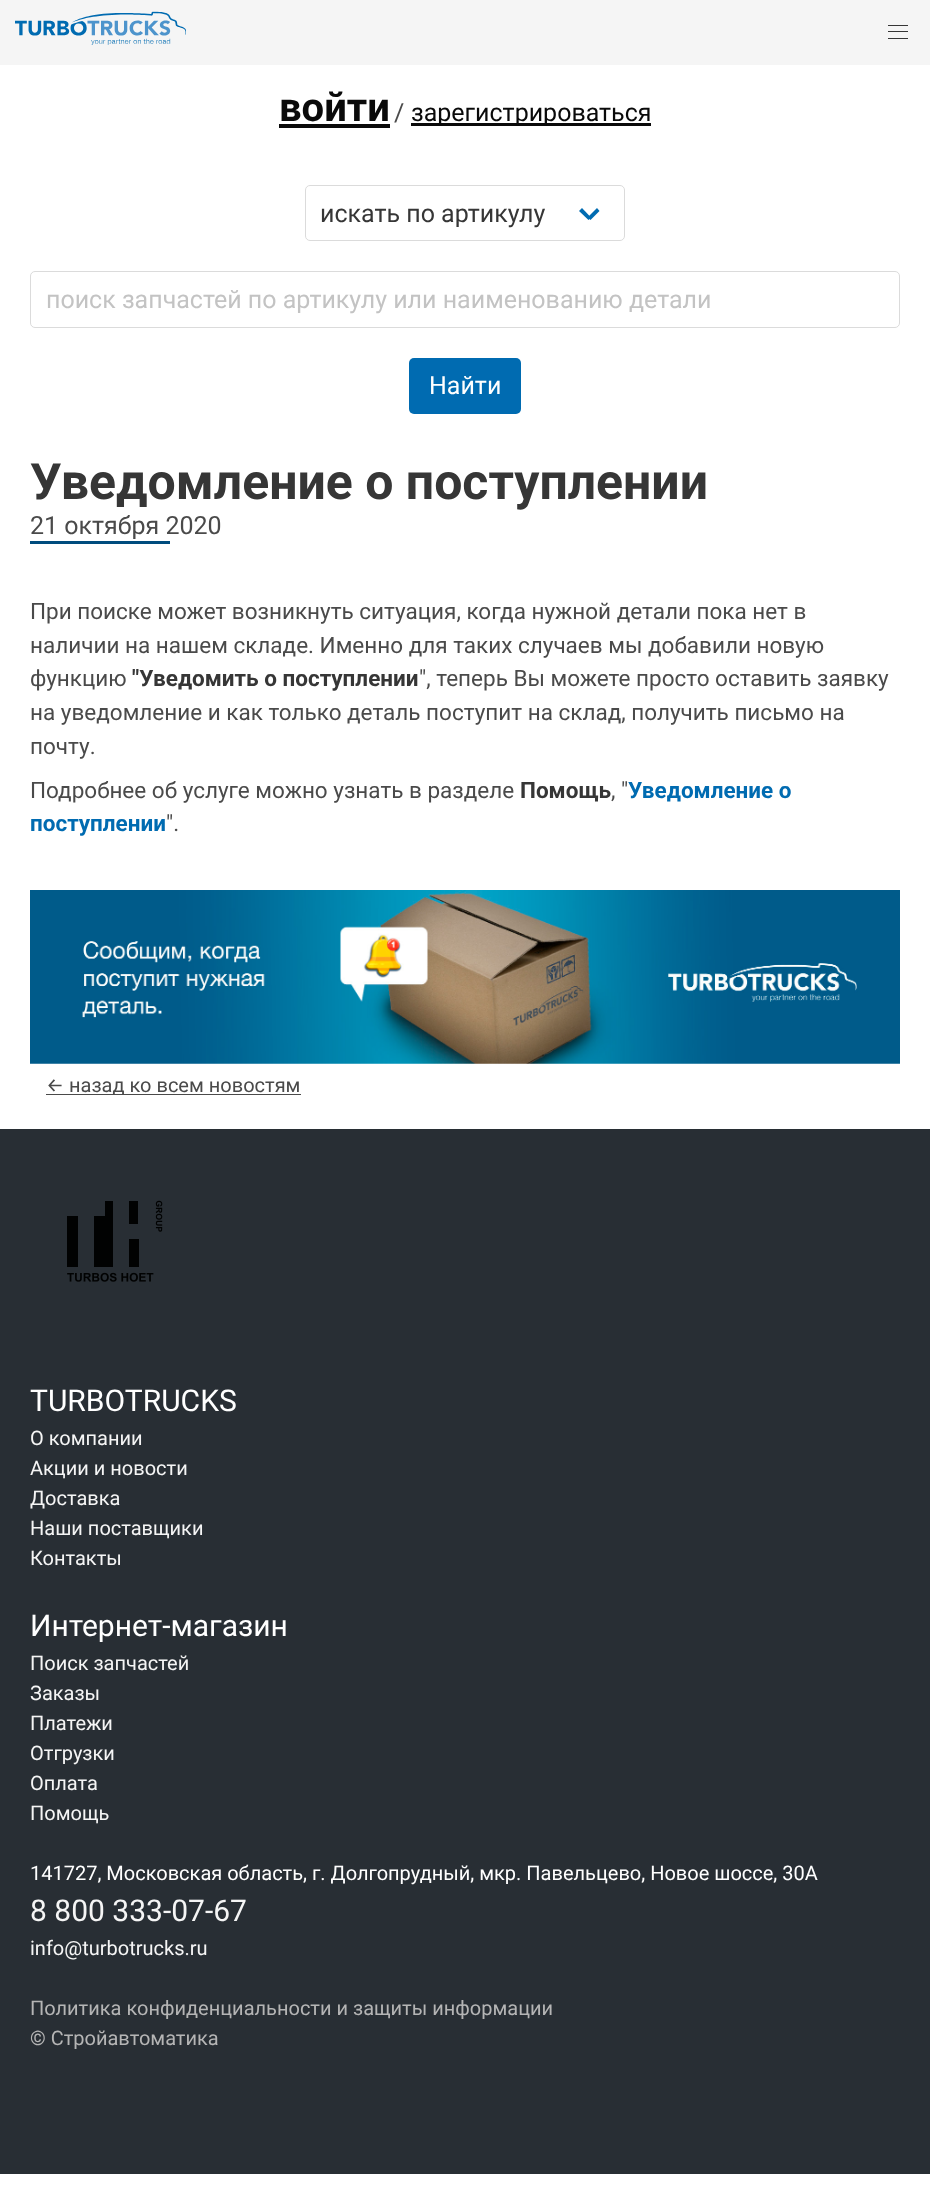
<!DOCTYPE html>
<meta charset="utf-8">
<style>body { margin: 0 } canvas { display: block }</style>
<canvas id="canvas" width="930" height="2210"></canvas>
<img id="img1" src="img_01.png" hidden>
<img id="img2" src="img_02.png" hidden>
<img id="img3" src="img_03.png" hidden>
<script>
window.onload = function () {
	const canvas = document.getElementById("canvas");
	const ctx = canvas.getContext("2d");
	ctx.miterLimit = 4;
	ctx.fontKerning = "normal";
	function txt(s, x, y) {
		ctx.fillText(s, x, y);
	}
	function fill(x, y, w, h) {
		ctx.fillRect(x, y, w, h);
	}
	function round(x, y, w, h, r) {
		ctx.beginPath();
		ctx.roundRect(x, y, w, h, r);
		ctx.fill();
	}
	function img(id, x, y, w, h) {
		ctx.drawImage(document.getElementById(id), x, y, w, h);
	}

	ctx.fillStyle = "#FFFFFF";
	fill(0, 0, 930, 2210);
	ctx.fillStyle = "#F5F5F5";
	fill(0, 0, 930, 65);
	img("img1", 15, 11, 171, 34);
	ctx.fillStyle = "#363636";
	fill(888, 25, 20, 1);
	fill(888, 31, 20, 1);
	fill(888, 38, 20, 1);
	ctx.fillStyle = "#0A0A0A";
	fill(279, 124, 111, 4);
	fill(411, 123, 240, 3);
	ctx.beginPath();
	ctx.roundRect(305.5, 185.5, 319, 55, 4.5);
	ctx.strokeStyle = "#DBDBDB";
	ctx.stroke();
	ctx.fillStyle = "#006BB1";
	ctx.beginPath();
	ctx.moveTo(587.5, 217.5);
	ctx.lineTo(597, 208);
	ctx.lineTo(599.5, 211);
	ctx.lineTo(590.5, 220);
	ctx.closePath();
	ctx.fill();
	ctx.beginPath();
	ctx.moveTo(579, 211);
	ctx.lineTo(582, 208);
	ctx.lineTo(591, 217.5);
	ctx.lineTo(588.5, 220);
	ctx.closePath();
	ctx.fill();
	ctx.beginPath();
	ctx.roundRect(30.5, 271.5, 869, 56, 4.5);
	ctx.stroke();
	round(409, 358, 112, 56, 5);
	ctx.fillStyle = "#004C7E";
	fill(30, 541, 140, 3);
	img("img2", 30, 890, 870, 174);
	ctx.fillStyle = "#4A4A4A";
	fill(46, 1094, 255, 1);
	ctx.fillStyle = "#282E34";
	fill(0, 1129, 930, 1045);
	img("img3", 67, 1200, 96, 82);
	ctx.font = "bold 40px Roboto";
	ctx.fillStyle = "#0A0A0A";
	txt("войти", 279, 121);
	ctx.font = "25px Roboto";
	ctx.fillStyle = "#4A4A4A";
	txt("/", 394, 121);
	ctx.fillStyle = "#0A0A0A";
	txt("зарегистрироваться", 411, 121);
	ctx.fillStyle = "#363636";
	txt("искать по артикулу", 320, 222);
	ctx.fillStyle = "#C3C3C3";
	txt("поиск запчастей по артикулу или наименованию детали", 46, 308);
	ctx.fillStyle = "#FFFFFF";
	txt("Найти", 429, 394);
	ctx.font = "bold 50px Roboto";
	ctx.fillStyle = "#363636";
	txt("Уведомление о поступлении", 30, 499);
	ctx.font = "25px Roboto";
	ctx.fillStyle = "#4A4A4A";
	txt("21 октября 2020", 30, 534);
	ctx.font = "22.5px Roboto";
	txt("При поиске может возникнуть ситуация, когда нужной детали пока нет в", 30, 619);
	txt("наличии на нашем складе. Именно для таких случаев мы добавили новую", 30, 653);
	txt("функцию", 30, 686);
	ctx.font = "bold 22.5px Roboto";
	ctx.fillStyle = "#363636";
	txt("\"Уведомить о поступлении", 132, 686);
	ctx.font = "22.5px Roboto";
	ctx.fillStyle = "#4A4A4A";
	txt("\", теперь Вы можете просто оставить заявку", 419, 686);
	txt("на уведомление и как только деталь поступит на склад, получить письмо на", 30, 720);
	txt("почту.", 30, 754);
	txt("Подробнее об услуге можно узнать в разделе", 30, 798);
	ctx.font = "bold 22.5px Roboto";
	ctx.fillStyle = "#363636";
	txt("Помощь", 520, 798);
	ctx.font = "22.5px Roboto";
	ctx.fillStyle = "#4A4A4A";
	txt(", \"", 611, 798);
	ctx.font = "bold 22.5px Roboto";
	ctx.fillStyle = "#006BB1";
	txt("Уведомление о", 628, 798);
	txt("поступлении", 30, 831);
	ctx.font = "22.5px Roboto";
	ctx.fillStyle = "#4A4A4A";
	txt("\".", 166, 831);
	ctx.font = "20px Fira Sans";
	txt("←", 46, 1092);
	ctx.font = "20px Roboto";
	txt("назад ко всем новостям", 69, 1092);
	ctx.font = "30px Roboto";
	ctx.fillStyle = "#FFFFFF";
	txt("TURBOTRUCKS", 30, 1411);
	ctx.font = "20px Roboto";
	ctx.fillStyle = "#F5F5F5";
	txt("О компании", 30, 1445);
	txt("Акции и новости", 30, 1475);
	txt("Доставка", 30, 1505);
	txt("Наши поставщики", 30, 1535);
	txt("Контакты", 30, 1565);
	ctx.font = "30px Roboto";
	ctx.fillStyle = "#FFFFFF";
	txt("Интернет-магазин", 30, 1636);
	ctx.font = "20px Roboto";
	ctx.fillStyle = "#F5F5F5";
	txt("Поиск запчастей", 30, 1670);
	txt("Заказы", 30, 1700);
	txt("Платежи", 30, 1730);
	txt("Отгрузки", 30, 1760);
	txt("Оплата", 30, 1790);
	txt("Помощь", 30, 1820);
	ctx.fillStyle = "#FFFFFF";
	txt("141727, Московская область, г. Долгопрудный, мкр. Павельцево, Новое шоссе, 30А", 30, 1880);
	ctx.font = "30px Roboto";
	ctx.fillStyle = "#F5F5F5";
	txt("8 800 333-07-67", 30, 1921);
	ctx.font = "20px Roboto";
	txt("info@turbotrucks.ru", 30, 1955);
	ctx.fillStyle = "#B5B5B5";
	txt("Политика конфиденциальности и защиты информации", 30, 2015);
	txt("© Стройавтоматика", 30, 2045);
};
</script>
